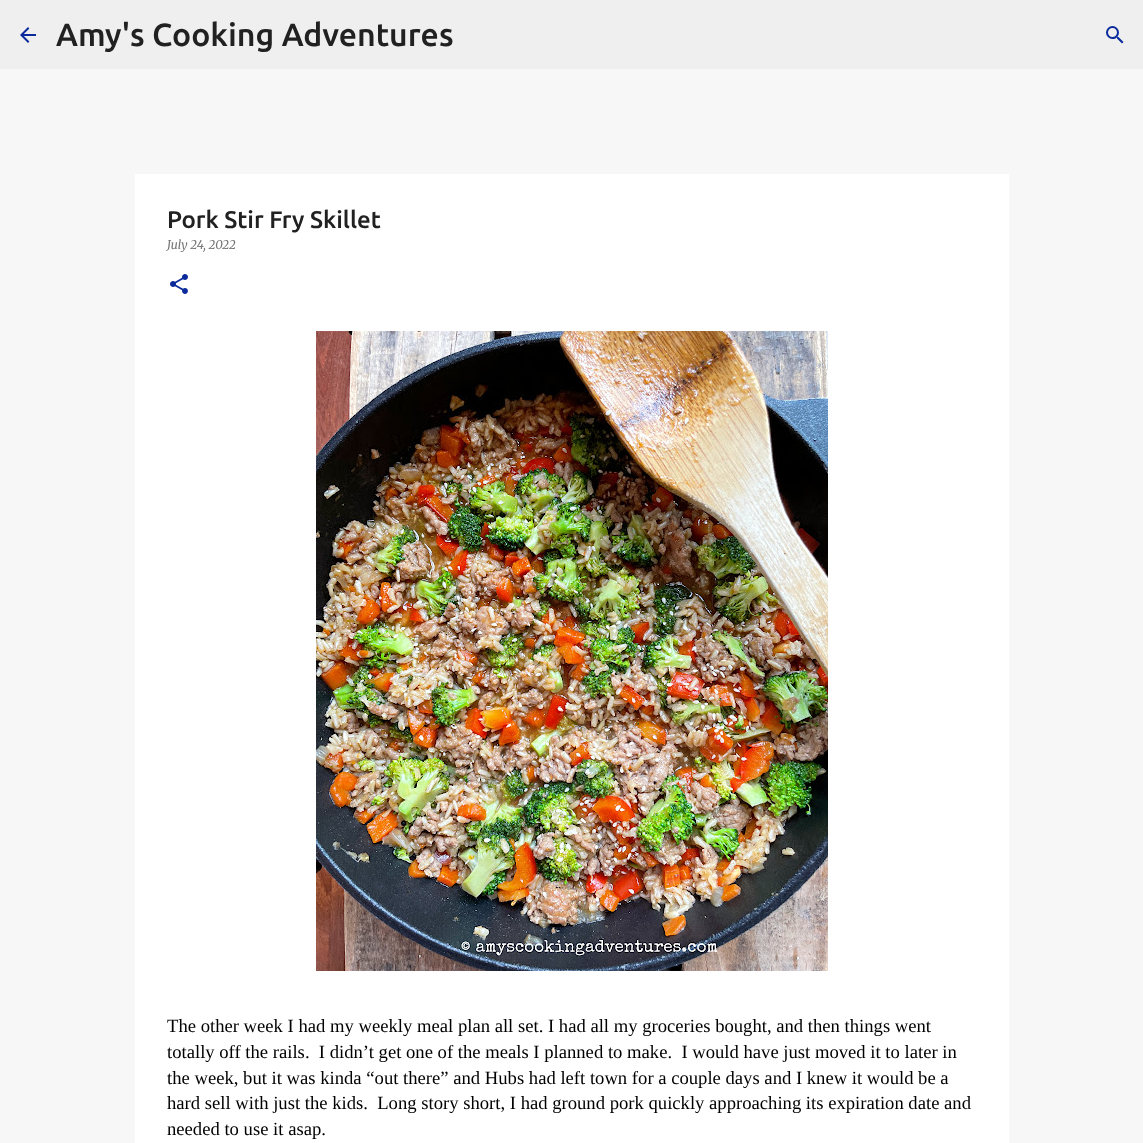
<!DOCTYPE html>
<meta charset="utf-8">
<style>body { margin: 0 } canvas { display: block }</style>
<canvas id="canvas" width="1143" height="1143"></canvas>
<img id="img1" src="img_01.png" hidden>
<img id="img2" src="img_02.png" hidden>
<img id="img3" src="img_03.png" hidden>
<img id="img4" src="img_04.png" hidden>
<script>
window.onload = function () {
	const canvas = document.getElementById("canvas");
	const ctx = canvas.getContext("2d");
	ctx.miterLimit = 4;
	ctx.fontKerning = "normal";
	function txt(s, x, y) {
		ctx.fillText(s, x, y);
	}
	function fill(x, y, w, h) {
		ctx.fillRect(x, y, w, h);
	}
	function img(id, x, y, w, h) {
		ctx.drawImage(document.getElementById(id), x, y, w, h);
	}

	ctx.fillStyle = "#F7F7F7";
	fill(0, 0, 1143, 1143);
	ctx.fillStyle = "#EFEFEF";
	fill(0, 0, 1143, 69);
	img("img1", 20, 27, 16, 16);
	img("img2", 1106, 26, 18, 18);
	ctx.fillStyle = "#FFFFFF";
	fill(135, 174, 874, 969);
	img("img3", 170, 274, 18, 20);
	img("img4", 316, 331, 512, 640);
	ctx.font = "500 32px Ubuntu";
	ctx.fillStyle = "#212121";
	txt("Amy's Cooking Adventures", 56, 46);
	ctx.font = "500 24px Ubuntu";
	txt("Pork Stir Fry Skillet", 167, 228);
	ctx.font = "italic 12px Merriweather";
	ctx.fillStyle = "#757575";
	txt("July 24, 2022", 167, 249);
	ctx.font = "18.65px Liberation Serif";
	ctx.fillStyle = "#000000";
	txt("The other week I had my weekly meal plan all set. I had all my groceries bought, and then things went", 167, 1032);
	txt("totally off the rails.  I didn’t get one of the meals I planned to make.  I would have just moved it to later in", 167, 1058);
	txt("the week, but it was kinda “out there” and Hubs had left town for a couple days and I knew it would be a", 167, 1084);
	txt("hard sell with just the kids.  Long story short, I had ground pork quickly approaching its expiration date and", 167, 1109);
	txt("needed to use it asap.", 167, 1135);
};
</script>
